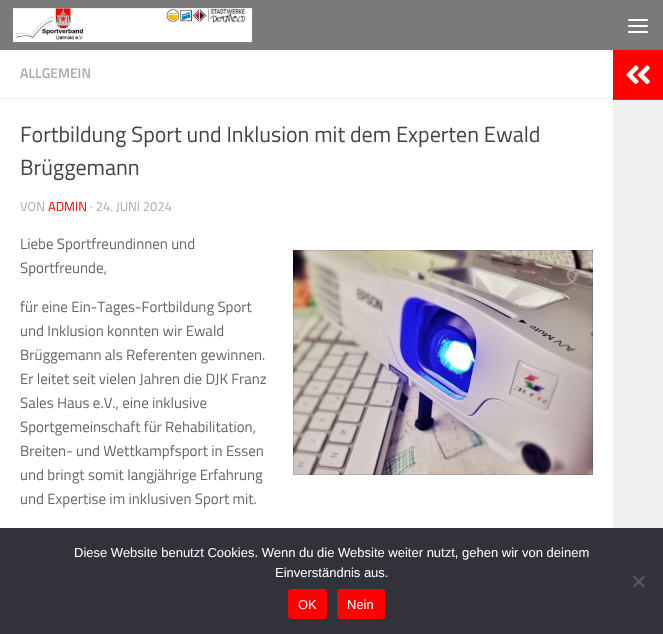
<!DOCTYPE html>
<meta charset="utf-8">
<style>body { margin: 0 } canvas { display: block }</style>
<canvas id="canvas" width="663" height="634"></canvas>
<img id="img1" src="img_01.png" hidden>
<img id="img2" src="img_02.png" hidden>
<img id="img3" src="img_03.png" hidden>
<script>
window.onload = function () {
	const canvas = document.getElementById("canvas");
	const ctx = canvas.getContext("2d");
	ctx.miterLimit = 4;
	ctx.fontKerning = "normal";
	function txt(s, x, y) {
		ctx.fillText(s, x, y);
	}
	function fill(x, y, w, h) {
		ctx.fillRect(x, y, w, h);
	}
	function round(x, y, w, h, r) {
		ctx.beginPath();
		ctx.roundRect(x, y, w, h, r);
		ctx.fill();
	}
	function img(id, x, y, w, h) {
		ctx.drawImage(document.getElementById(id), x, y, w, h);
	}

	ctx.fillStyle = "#FFFFFF";
	fill(0, 0, 663, 634);
	ctx.fillStyle = "#7A7A7A";
	fill(0, 0, 663, 50);
	img("img1", 13, 8, 240, 35);
	ctx.fillStyle = "#FFFFFF";
	round(628, 19, 20, 2, 1);
	round(628, 25, 20, 2, 1);
	round(628, 31, 20, 2, 1);
	ctx.fillStyle = "#EEEEEE";
	fill(0, 98, 613, 1);
	img("img2", 293, 250, 300, 225);
	ctx.fillStyle = "#FE0000";
	fill(613, 50, 50, 49);
	ctx.fillStyle = "#FE1A1A";
	fill(613, 99, 50, 1);
	img("img3", 626, 65, 24, 20);
	ctx.fillStyle = "#F0F0F0";
	fill(613, 100, 50, 428);
	ctx.fillStyle = "#32323A";
	fill(0, 528, 663, 106);
	ctx.fillStyle = "#59595D";
	ctx.beginPath();
	ctx.moveTo(643.5, 575.5);
	ctx.lineTo(645, 577);
	ctx.lineTo(634.5, 587.5);
	ctx.lineTo(633, 586);
	ctx.closePath();
	ctx.fill();
	ctx.beginPath();
	ctx.moveTo(633, 577);
	ctx.lineTo(634.5, 575.5);
	ctx.lineTo(645, 586);
	ctx.lineTo(643.5, 587.5);
	ctx.closePath();
	ctx.fill();
	ctx.fillStyle = "#FE0000";
	round(288, 589, 39, 30, 3);
	round(337, 589, 48, 30, 3);
	ctx.font = "600 14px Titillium";
	ctx.fillStyle = "#AAAAAA";
	txt("ALLGEMEIN", 20, 78);
	ctx.font = "22px Titillium";
	ctx.fillStyle = "#444444";
	txt("Fortbildung Sport und Inklusion mit dem Experten Ewald", 20, 142);
	txt("Brüggemann", 20, 175);
	ctx.font = "13px Titillium";
	ctx.fillStyle = "#AAAAAA";
	txt("VON", 20, 211);
	ctx.fillStyle = "#FE0000";
	txt("ADMIN", 48, 211);
	ctx.fillStyle = "#AAAAAA";
	txt("· 24. JUNI 2024", 90, 211);
	ctx.font = "15px Titillium";
	ctx.fillStyle = "#666666";
	txt("Liebe Sportfreundinnen und", 20, 249);
	txt("Sportfreunde,", 20, 273);
	txt("für eine Ein-Tages-Fortbildung Sport", 20, 312);
	txt("und Inklusion konnten wir Ewald", 20, 336);
	txt("Brüggemann als Referenten gewinnen.", 20, 360);
	txt("Er leitet seit vielen Jahren die DJK Franz", 20, 384);
	txt("Sales Haus e.V., eine inklusive", 20, 408);
	txt("Sportgemeinschaft für Rehabilitation,", 20, 432);
	txt("Breiten- und Wettkampfsport in Essen", 20, 456);
	txt("und bringt somit langjährige Erfahrung", 20, 480);
	txt("und Expertise im inklusiven Sport mit.", 20, 504);
	ctx.font = "13px Liberation Sans";
	ctx.fillStyle = "#FFFFFF";
	txt("Diese Website benutzt Cookies. Wenn du die Website weiter nutzt, gehen wir von deinem", 74, 557);
	txt("Einverständnis aus.", 275, 577);
	txt("OK", 298, 609);
	txt("Nein", 347, 609);
};
</script>
